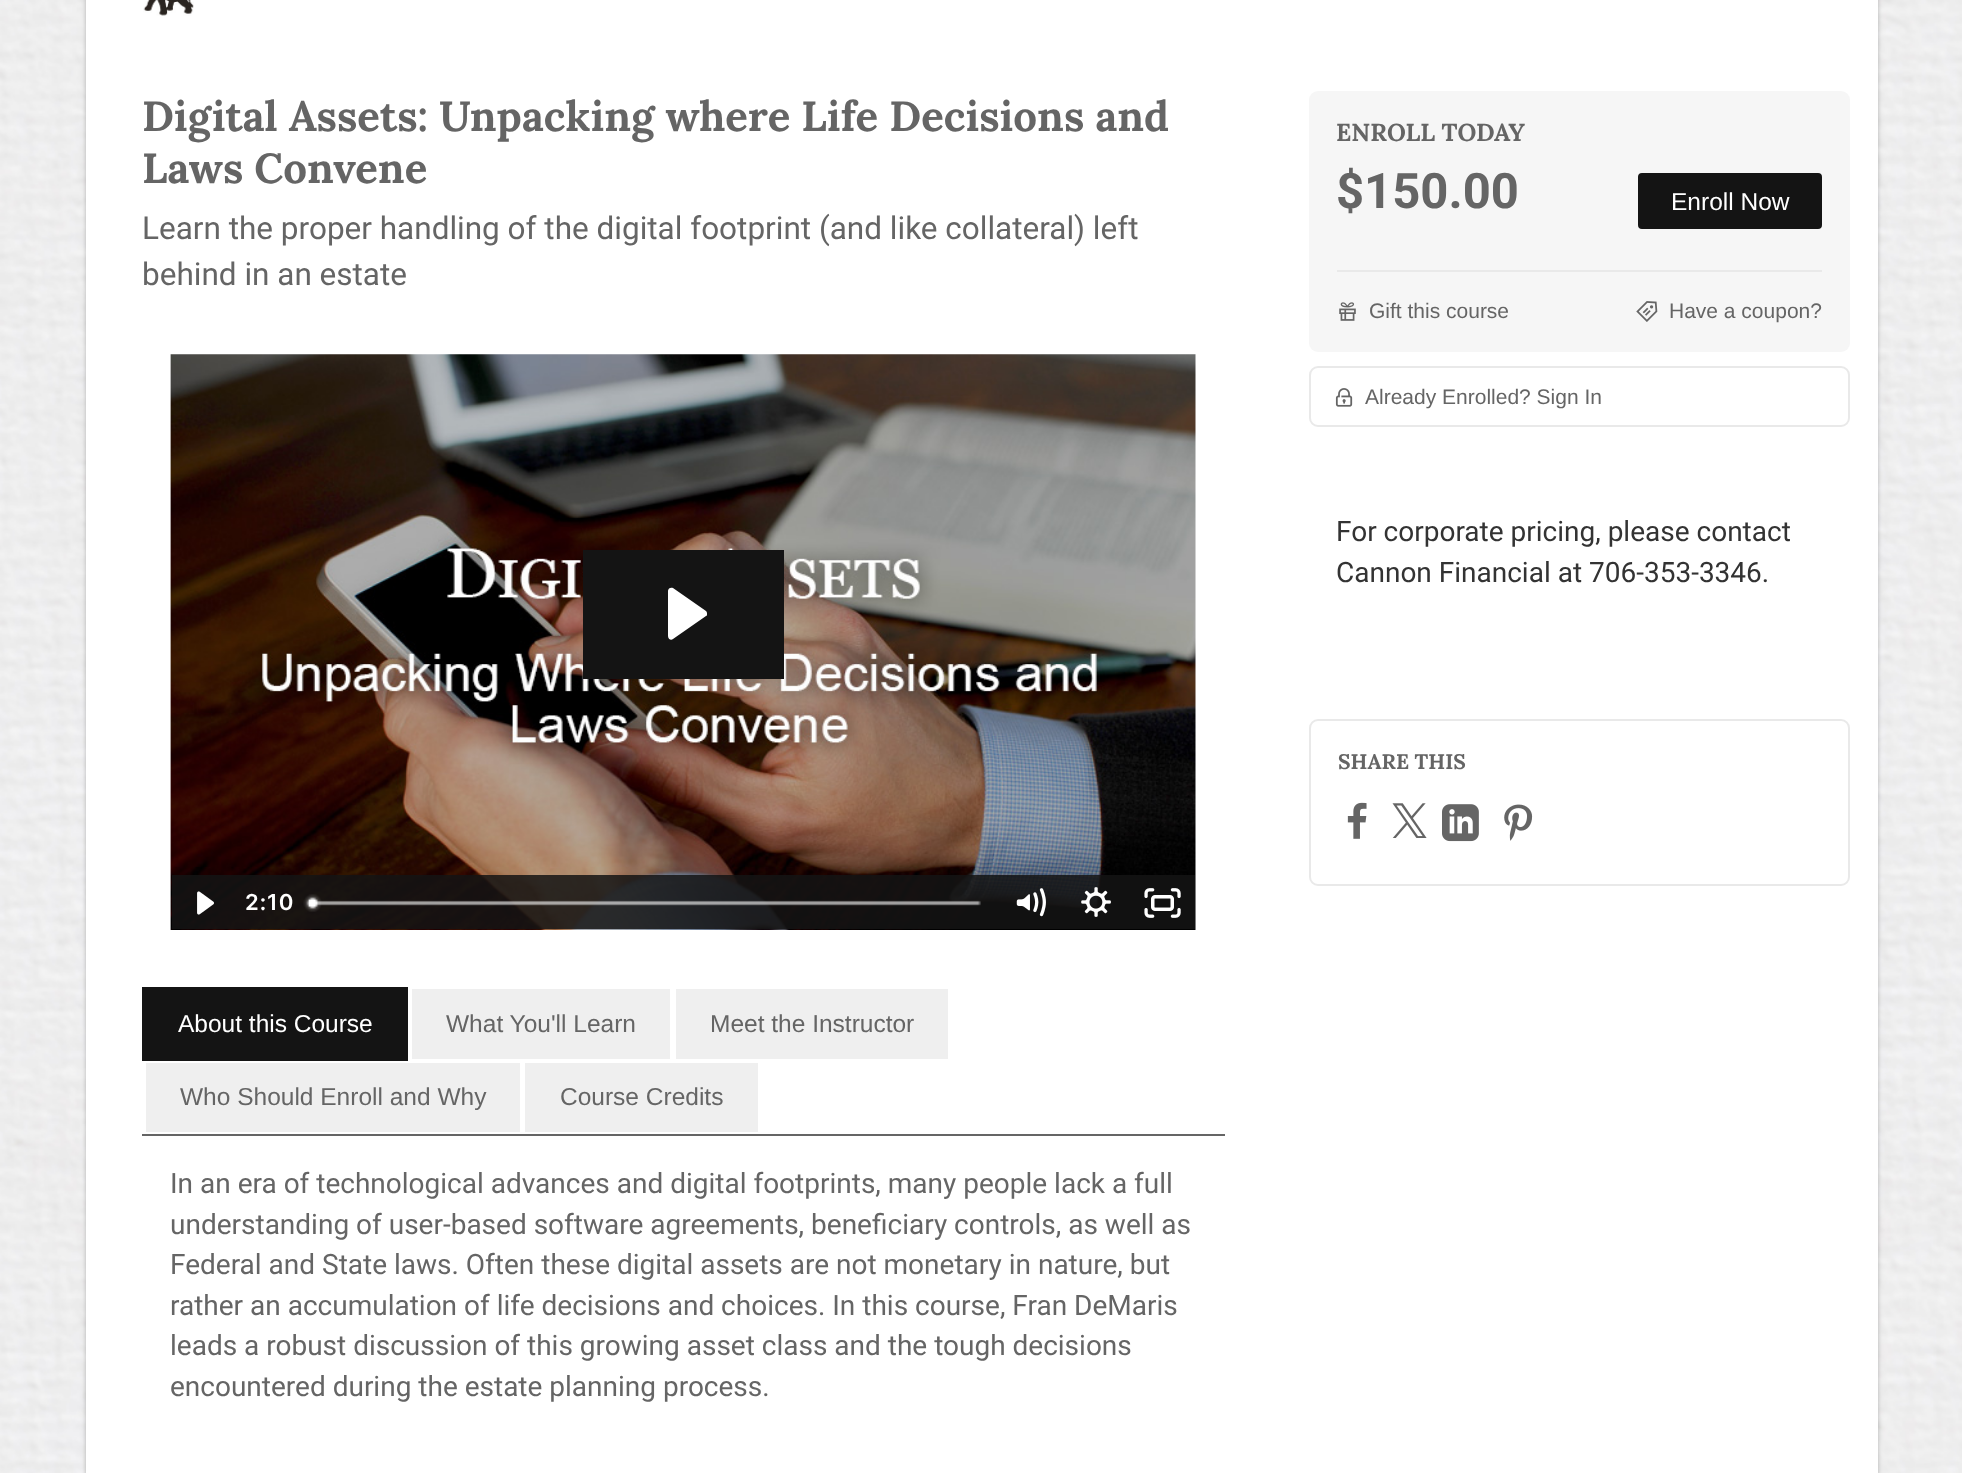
<!DOCTYPE html>
<meta charset="utf-8">
<style>body { margin: 0 } canvas { display: block }</style>
<canvas id="canvas" width="1962" height="1473"></canvas>
<img id="img1" src="img_01.png" hidden>
<img id="img2" src="img_02.png" hidden>
<img id="img3" src="img_03.png" hidden>
<img id="img4" src="img_04.png" hidden>
<img id="img5" src="img_05.png" hidden>
<img id="img6" src="img_06.png" hidden>
<img id="img7" src="img_07.png" hidden>
<img id="img8" src="img_08.png" hidden>
<img id="img9" src="img_09.png" hidden>
<img id="img10" src="img_10.png" hidden>
<img id="img11" src="img_11.png" hidden>
<img id="img12" src="img_12.png" hidden>
<img id="img13" src="img_13.png" hidden>
<img id="img14" src="img_14.png" hidden>
<img id="img15" src="img_15.png" hidden>
<script>
window.onload = function () {
	const canvas = document.getElementById("canvas");
	const ctx = canvas.getContext("2d");
	ctx.miterLimit = 4;
	ctx.fontKerning = "normal";
	function txt(s, x, y) {
		ctx.fillText(s, x, y);
	}
	function fill(x, y, w, h) {
		ctx.fillRect(x, y, w, h);
	}
	function round(x, y, w, h, r) {
		ctx.beginPath();
		ctx.roundRect(x, y, w, h, r);
		ctx.fill();
	}
	function img(id, x, y, w, h) {
		ctx.drawImage(document.getElementById(id), x, y, w, h);
	}

	ctx.fillStyle = "#FFFFFF";
	fill(0, 0, 1962, 1473);
	img("img1", 0, 0, 1962, 1473);
	ctx.fillStyle = "rgba(0, 0, 0, 0.25)";
	ctx.filter = "blur(2px)";
	ctx.beginPath();
	ctx.rect(93, -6, 1785, 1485);
	ctx.fill();
	ctx.filter = "none";
	ctx.filter = "blur(2px)";
	ctx.beginPath();
	ctx.rect(86, -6, 1785, 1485);
	ctx.fill();
	ctx.filter = "none";
	ctx.fillStyle = "#FFFFFF";
	fill(86, 0, 1792, 1473);
	img("img2", 143, 0, 51, 16);
	img("img3", 170, 354, 1026, 576);
	ctx.fillStyle = "#141414";
	fill(583, 550, 201, 129);
	ctx.fillStyle = "#FFFFFF";
	ctx.beginPath();
	ctx.moveTo(673, 588);
	ctx.bezierCurveTo(671, 587, 668, 588, 668, 591);
	ctx.lineTo(668, 636);
	ctx.bezierCurveTo(668, 639, 671, 641, 673, 639);
	ctx.lineTo(706, 616);
	ctx.bezierCurveTo(707, 616, 707, 615, 707, 614);
	ctx.bezierCurveTo(707, 613, 707, 612, 706, 611);
	ctx.closePath();
	ctx.fill("evenodd");
	ctx.fillStyle = "rgba(20, 20, 20, 0.85)";
	fill(172, 875, 1023, 54);
	img("img4", 197, 891, 17, 24);
	img("img5", 303, 894, 678, 18);
	img("img6", 1016, 888, 30, 29);
	img("img7", 1081, 887, 30, 30);
	img("img8", 1144, 888, 37, 30);
	ctx.fillStyle = "#656565";
	fill(142, 1134, 1083, 2);
	ctx.fillStyle = "#141414";
	fill(142, 987, 266, 74);
	ctx.fillStyle = "#EFEFEF";
	fill(412, 989, 258, 70);
	fill(676, 989, 272, 70);
	fill(146, 1063, 374, 69);
	fill(525, 1063, 233, 69);
	ctx.fillStyle = "#F6F6F6";
	round(1309, 91, 541, 261, 9);
	ctx.fillStyle = "#141414";
	ctx.beginPath();
	ctx.roundRect(1639, 174, 182, 54, 3);
	ctx.fill();
	ctx.strokeStyle = "#141414";
	ctx.lineWidth = 2;
	ctx.stroke();
	ctx.fillStyle = "#E9E9E9";
	fill(1337, 270, 485, 2);
	img("img9", 1339, 302, 17, 19);
	img("img10", 1636, 301, 22, 21);
	ctx.beginPath();
	ctx.roundRect(1310, 367, 539, 59, 8);
	ctx.strokeStyle = "#E9E9E9";
	ctx.stroke();
	img("img11", 1335, 388, 18, 19);
	ctx.beginPath();
	ctx.roundRect(1310, 720, 539, 165, 8);
	ctx.stroke();
	img("img12", 1347, 802, 20, 37);
	img("img13", 1392, 803, 35, 35);
	img("img14", 1442, 804, 37, 38);
	img("img15", 1504, 804, 29, 37);
	ctx.font = "bold 42px Lora";
	ctx.fillStyle = "#656565";
	txt("Digital Assets: Unpacking where Life Decisions and", 142, 131);
	txt("Laws Convene", 142, 183);
	ctx.font = "31.5px Roboto";
	txt("Learn the proper handling of the digital footprint (and like collateral) left", 142, 239);
	txt("behind in an estate", 142, 285);
	ctx.letterSpacing = "1px";
	ctx.font = "600 22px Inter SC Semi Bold";
	ctx.fillStyle = "#FFFFFF";
	txt("2:10", 245, 910);
	ctx.letterSpacing = "0px";
	ctx.font = "24.5px Liberation Sans";
	txt("About this Course", 178, 1032);
	ctx.fillStyle = "#656565";
	txt("What You'll Learn", 446, 1032);
	txt("Meet the Instructor", 710, 1032);
	txt("Who Should Enroll and Why", 180, 1105);
	txt("Course Credits", 560, 1105);
	ctx.font = "28px Roboto";
	txt("In an era of technological advances and digital footprints, many people lack a full", 170, 1193);
	txt("understanding of user-based software agreements, beneficiary controls, as well as", 170, 1234);
	txt("Federal and State laws. Often these digital assets are not monetary in nature, but", 170, 1274);
	txt("rather an accumulation of life decisions and choices. In this course, Fran DeMaris", 170, 1315);
	txt("leads a robust discussion of this growing asset class and the tough decisions", 170, 1355);
	txt("encountered during the estate planning process.", 170, 1396);
	ctx.font = "bold 24.5px Lora";
	txt("ENROLL TODAY", 1336, 141);
	ctx.font = "bold 49px Roboto";
	txt("$150.00", 1336, 208);
	ctx.font = "24.5px Liberation Sans";
	ctx.fillStyle = "#FFFFFF";
	txt("Enroll Now", 1671, 210);
	ctx.font = "21px Liberation Sans";
	ctx.fillStyle = "#656565";
	txt("Gift this course", 1369, 318);
	txt("Have a coupon?", 1669, 318);
	txt("Already Enrolled? Sign In", 1365, 404);
	ctx.font = "28px Roboto";
	ctx.fillStyle = "#333333";
	txt("For corporate pricing, please contact", 1336, 541);
	txt("Cannon Financial at 706-353-3346.", 1336, 582);
	ctx.font = "bold 21px Lora";
	ctx.fillStyle = "#656565";
	txt("SHARE THIS", 1338, 769);
};
</script>
